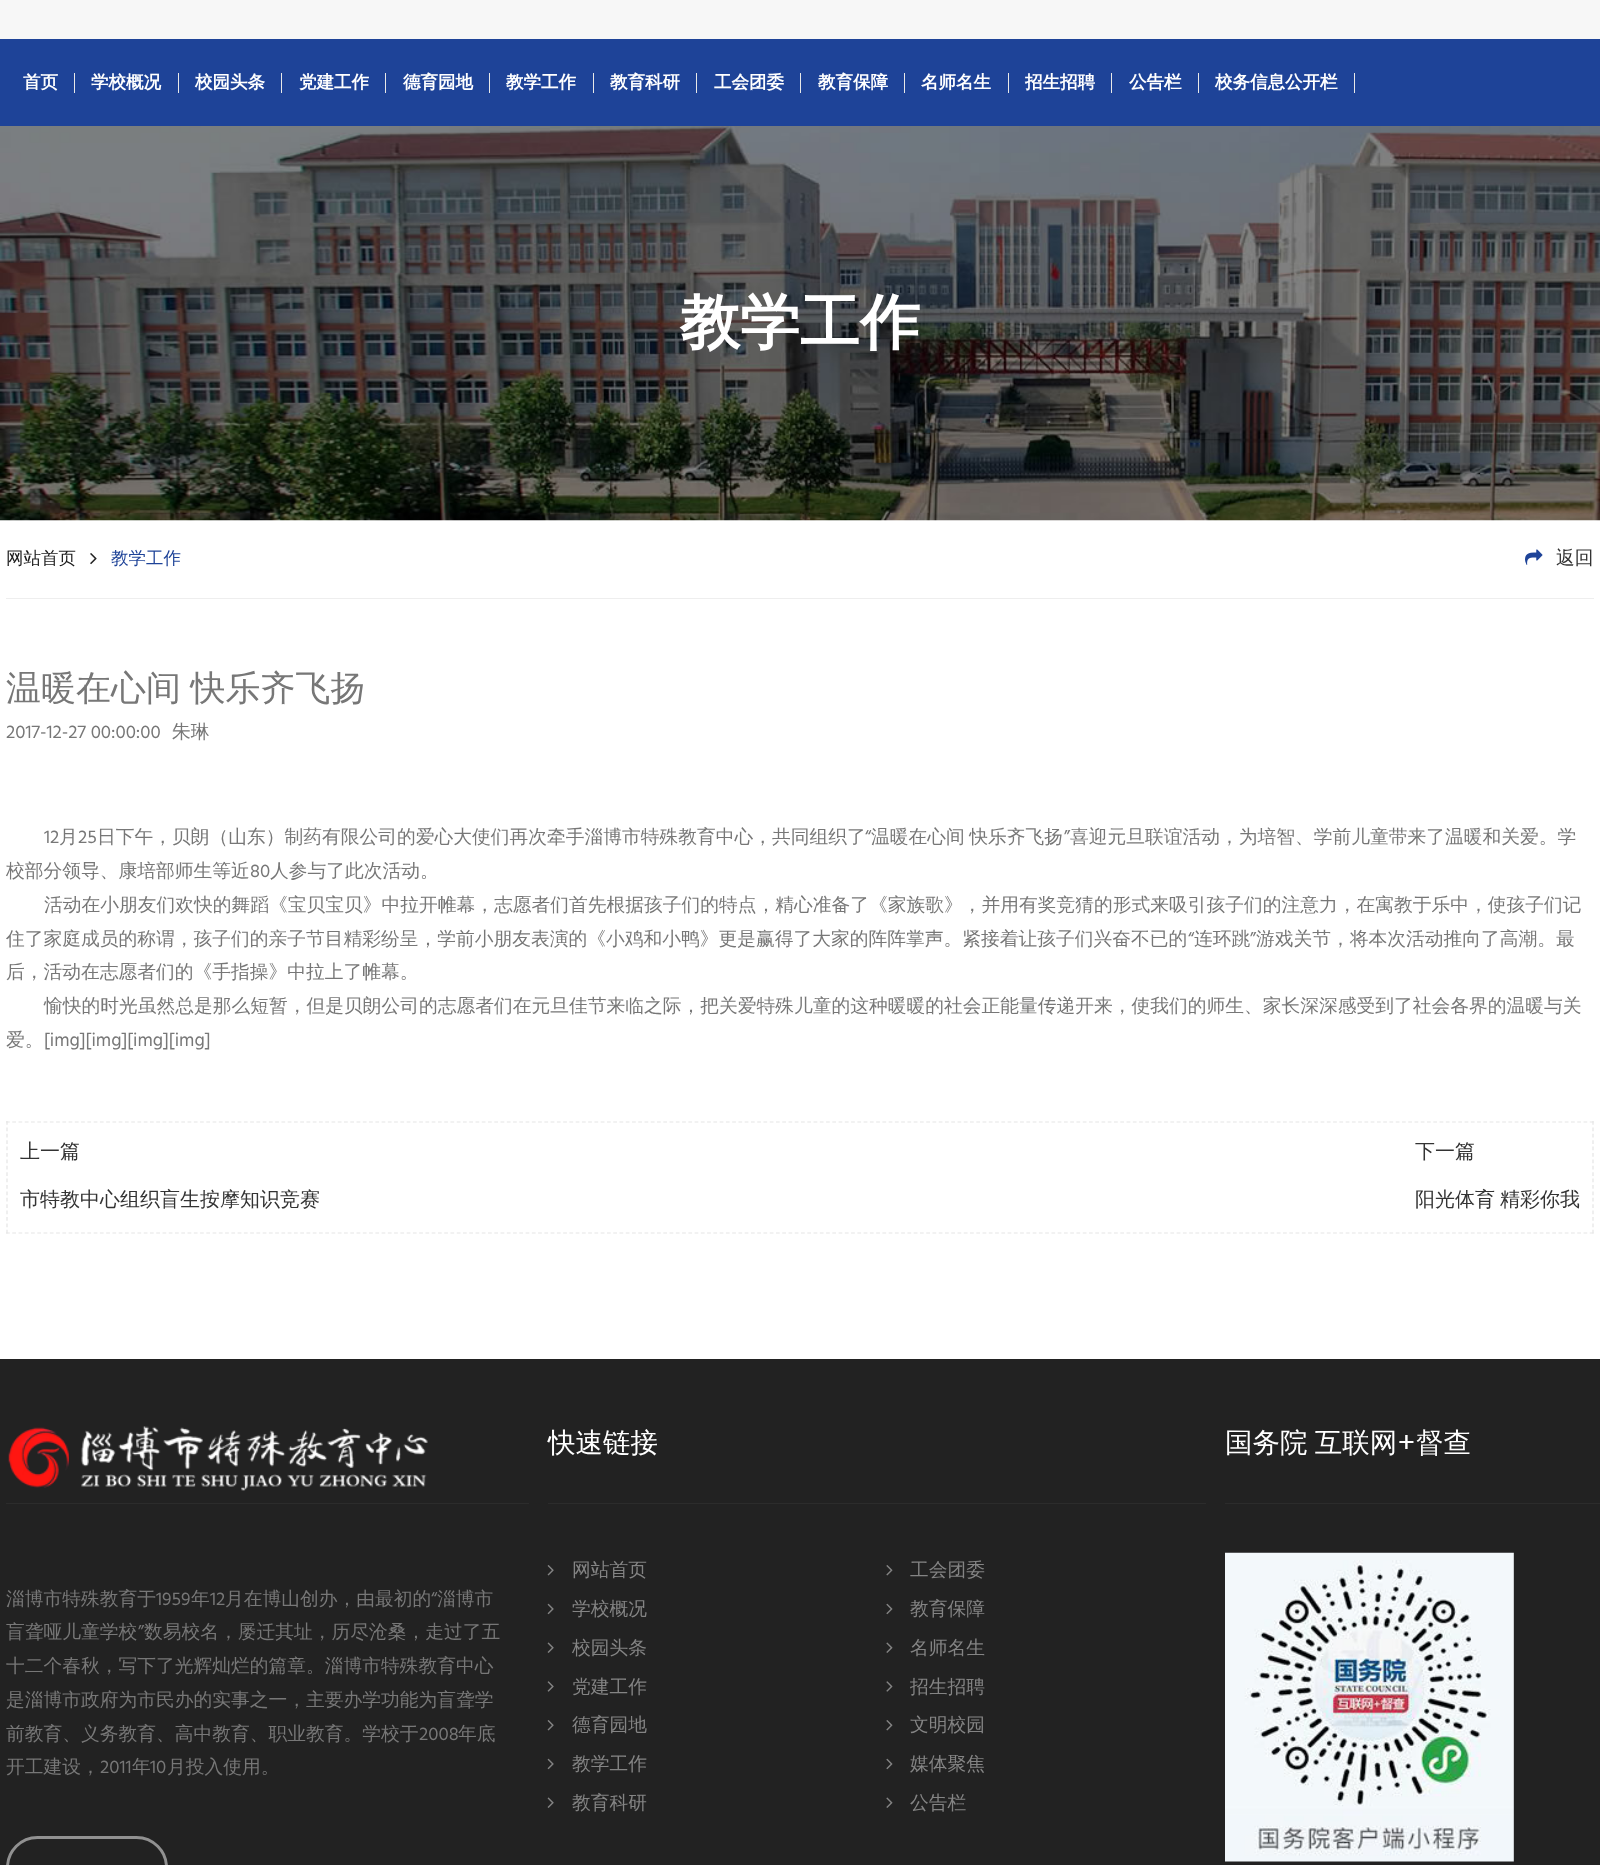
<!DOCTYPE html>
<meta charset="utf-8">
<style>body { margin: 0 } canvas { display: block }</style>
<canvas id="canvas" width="1600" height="1865"></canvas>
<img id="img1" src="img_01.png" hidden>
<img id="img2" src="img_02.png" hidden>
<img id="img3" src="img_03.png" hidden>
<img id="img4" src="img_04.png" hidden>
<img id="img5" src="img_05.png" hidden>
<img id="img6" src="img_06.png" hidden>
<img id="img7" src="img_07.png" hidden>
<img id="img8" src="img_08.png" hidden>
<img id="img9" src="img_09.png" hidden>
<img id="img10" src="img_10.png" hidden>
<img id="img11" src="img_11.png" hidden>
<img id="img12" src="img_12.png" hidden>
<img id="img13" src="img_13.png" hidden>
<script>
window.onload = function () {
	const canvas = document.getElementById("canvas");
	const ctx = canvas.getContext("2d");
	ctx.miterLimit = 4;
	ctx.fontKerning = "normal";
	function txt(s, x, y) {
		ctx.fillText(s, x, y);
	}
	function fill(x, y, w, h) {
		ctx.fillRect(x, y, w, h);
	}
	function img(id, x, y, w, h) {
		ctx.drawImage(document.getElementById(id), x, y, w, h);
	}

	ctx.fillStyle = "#FFFFFF";
	fill(0, 0, 1600, 1865);
	ctx.fillStyle = "#F7F7F7";
	fill(0, 0, 1600, 39);
	ctx.fillStyle = "#1E4398";
	fill(0, 39, 1600, 87);
	ctx.fillStyle = "#E8E8E8";
	fill(74, 73, 1, 20);
	fill(178, 73, 1, 20);
	fill(281, 73, 1, 20);
	fill(385, 73, 1, 20);
	fill(489, 73, 1, 20);
	fill(593, 73, 1, 20);
	fill(696, 73, 1, 20);
	fill(800, 73, 1, 20);
	fill(904, 73, 1, 20);
	fill(1008, 73, 1, 20);
	fill(1111, 73, 1, 20);
	fill(1198, 73, 1, 20);
	fill(1354, 73, 1, 20);
	img("img1", 0, 126, 1600, 395);
	ctx.fillStyle = "#EEEEEE";
	fill(6, 598, 1588, 1);
	img("img2", 90, 553, 7, 12);
	img("img3", 1525, 549, 18, 16);
	ctx.beginPath();
	ctx.moveTo(6, 1122);
	ctx.lineTo(1594, 1122);
	ctx.strokeStyle = "#E5E5E5";
	ctx.lineWidth = 1.2;
	ctx.setLineDash([3.75, 2.51]);
	ctx.stroke();
	ctx.beginPath();
	ctx.moveTo(1593, 1121);
	ctx.lineTo(1593, 1234);
	ctx.setLineDash([3.75, 2.65]);
	ctx.stroke();
	ctx.beginPath();
	ctx.moveTo(6, 1233);
	ctx.lineTo(1594, 1233);
	ctx.setLineDash([3.75, 2.51]);
	ctx.stroke();
	ctx.beginPath();
	ctx.moveTo(7, 1121);
	ctx.lineTo(7, 1234);
	ctx.setLineDash([3.75, 2.65]);
	ctx.stroke();
	ctx.fillStyle = "#222222";
	fill(0, 1359, 1600, 506);
	ctx.fillStyle = "#2C2C2C";
	fill(548, 1503, 658, 1);
	img("img4", 547, 1565, 7, 11);
	img("img5", 547, 1603, 7, 12);
	img("img6", 547, 1642, 7, 11);
	img("img7", 547, 1681, 7, 11);
	img("img4", 547, 1720, 7, 11);
	img("img5", 547, 1758, 7, 12);
	img("img6", 547, 1797, 7, 11);
	img("img8", 886, 1565, 7, 11);
	img("img9", 886, 1603, 7, 12);
	img("img10", 886, 1642, 7, 11);
	img("img11", 886, 1681, 7, 11);
	img("img8", 886, 1720, 7, 11);
	img("img9", 886, 1758, 7, 12);
	img("img10", 886, 1797, 7, 11);
	fill(1225, 1503, 375, 1);
	img("img12", 1225, 1552, 289, 310);
	fill(6, 1503, 523, 1);
	img("img13", 8, 1426, 420, 65);
	ctx.beginPath();
	ctx.roundRect(7.5, 1837.5, 159, 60, 30);
	ctx.strokeStyle = "#919191";
	ctx.lineWidth = 3;
	ctx.setLineDash([]);
	ctx.stroke();
	ctx.font = "bold 17.5px WenQuanYi Zen Hei";
	ctx.fillStyle = "#FFFFFF";
	txt("首页", 23, 88);
	txt("学校概况", 91, 88);
	txt("校园头条", 195, 88);
	txt("党建工作", 299, 88);
	txt("德育园地", 403, 88);
	txt("教学工作", 506, 88);
	txt("教育科研", 610, 88);
	txt("工会团委", 714, 88);
	txt("教育保障", 818, 88);
	txt("名师名生", 921, 88);
	txt("招生招聘", 1025, 88);
	txt("公告栏", 1129, 88);
	txt("校务信息公开栏", 1215, 88);
	ctx.font = "bold 60px WenQuanYi Zen Hei";
	txt("教学工作", 680, 343);
	ctx.font = "500 17.5px WenQuanYi Zen Hei";
	ctx.fillStyle = "#1A1A1A";
	txt("网站首页", 6, 564);
	ctx.fillStyle = "#1E4398";
	txt("教学工作", 111, 564);
	ctx.font = "500 18.75px WenQuanYi Zen Hei";
	ctx.fillStyle = "#333333";
	txt("返回", 1556, 564);
	ctx.wordSpacing = "-1px";
	ctx.font = "500 35px WenQuanYi Zen Hei";
	ctx.fillStyle = "#777777";
	txt("温暖在心间 快乐齐飞扬", 6, 700);
	ctx.wordSpacing = "0px";
	ctx.font = "18.75px Hind";
	txt("2017-12-27 00:00:00", 6, 738);
	ctx.font = "500 18.75px WenQuanYi Zen Hei";
	txt("朱琳", 172, 738);
	ctx.font = "18.75px Hind";
	txt("12", 44, 843);
	ctx.font = "500 18.75px WenQuanYi Zen Hei";
	txt("月", 59, 843);
	ctx.font = "18.75px Hind";
	txt("25", 78, 843);
	ctx.font = "500 18.75px WenQuanYi Zen Hei";
	txt("日下午，贝朗（山东）制药有限公司的爱心大使们再次牵手淄博市特殊教育中心，共同组织了", 97, 843);
	ctx.font = "18.75px Hind";
	txt("“", 865, 843);
	ctx.wordSpacing = "-1px";
	ctx.font = "500 18.75px WenQuanYi Zen Hei";
	txt("温暖在心间 快乐齐飞扬", 871, 843);
	ctx.wordSpacing = "0px";
	ctx.font = "18.75px Hind";
	txt("”", 1064, 843);
	ctx.font = "500 18.75px WenQuanYi Zen Hei";
	txt("喜迎元旦联谊活动，为培智、学前儿童带来了温暖和关爱。学", 1070, 843);
	txt("校部分领导、康培部师生等近", 6, 877);
	ctx.font = "18.75px Hind";
	txt("80", 250, 877);
	ctx.font = "500 18.75px WenQuanYi Zen Hei";
	txt("人参与了此次活动。", 270, 877);
	txt("活动在小朋友们欢快的舞蹈《宝贝宝贝》中拉开帷幕，志愿者们首先根据孩子们的特点，精心准备了《家族歌》，并用有奖竞猜的形式来吸引孩子们的注意力，在寓教于乐中，使孩子们记", 44, 911);
	txt("住了家庭成员的称谓，孩子们的亲子节目精彩纷呈，学前小朋友表演的《小鸡和小鸭》更是赢得了大家的阵阵掌声。紧接着让孩子们兴奋不已的", 6, 945);
	ctx.font = "18.75px Hind";
	txt("“", 1188, 945);
	ctx.font = "500 18.75px WenQuanYi Zen Hei";
	txt("连环跳", 1194, 945);
	ctx.font = "18.75px Hind";
	txt("”", 1250, 945);
	ctx.font = "500 18.75px WenQuanYi Zen Hei";
	txt("游戏关节，将本次活动推向了高潮。最", 1256, 945);
	txt("后，活动在志愿者们的《手指操》中拉上了帷幕。", 6, 978);
	txt("愉快的时光虽然总是那么短暂，但是贝朗公司的志愿者们在元旦佳节来临之际，把关爱特殊儿童的这种暖暖的社会正能量传递开来，使我们的师生、家长深深感受到了社会各界的温暖与关", 44, 1012);
	txt("爱。", 6, 1046);
	ctx.font = "18.75px Hind";
	txt("[img][img][img][img]", 44, 1046);
	ctx.font = "500 20px WenQuanYi Zen Hei";
	ctx.fillStyle = "#333333";
	txt("上一篇", 20, 1158);
	txt("市特教中心组织盲生按摩知识竞赛", 20, 1206);
	txt("下一篇", 1415, 1158);
	ctx.wordSpacing = "-1px";
	txt("阳光体育 精彩你我", 1415, 1206);
	ctx.wordSpacing = "0px";
	ctx.font = "500 27.5px WenQuanYi Zen Hei";
	ctx.fillStyle = "#FFFFFF";
	txt("快速链接", 548, 1452);
	ctx.font = "500 18.75px WenQuanYi Zen Hei";
	ctx.fillStyle = "#848484";
	txt("网站首页", 572, 1576);
	txt("学校概况", 572, 1615);
	txt("校园头条", 572, 1654);
	txt("党建工作", 572, 1693);
	txt("德育园地", 572, 1731);
	txt("教学工作", 572, 1770);
	txt("教育科研", 572, 1809);
	txt("工会团委", 910, 1576);
	txt("教育保障", 910, 1615);
	txt("名师名生", 910, 1654);
	txt("招生招聘", 910, 1693);
	txt("文明校园", 910, 1731);
	txt("媒体聚焦", 910, 1770);
	txt("公告栏", 910, 1809);
	ctx.wordSpacing = "-1px";
	ctx.font = "500 27.5px WenQuanYi Zen Hei";
	ctx.fillStyle = "#FFFFFF";
	txt("国务院 互联网", 1225, 1452);
	ctx.wordSpacing = "0px";
	ctx.font = "27.5px Poppins";
	txt("+", 1397, 1452);
	ctx.font = "500 27.5px WenQuanYi Zen Hei";
	txt("督查", 1416, 1452);
	ctx.font = "500 18.75px WenQuanYi Zen Hei";
	ctx.fillStyle = "#777777";
	txt("淄博市特殊教育于", 6, 1605);
	ctx.font = "18.75px Hind";
	txt("1959", 156, 1605);
	ctx.font = "500 18.75px WenQuanYi Zen Hei";
	txt("年", 191, 1605);
	ctx.font = "18.75px Hind";
	txt("12", 210, 1605);
	ctx.font = "500 18.75px WenQuanYi Zen Hei";
	txt("月在博山创办，由最初的", 225, 1605);
	ctx.font = "18.75px Hind";
	txt("“", 431, 1605);
	ctx.font = "500 18.75px WenQuanYi Zen Hei";
	txt("淄博市", 437, 1605);
	txt("盲聋哑儿童学校", 6, 1638);
	ctx.font = "18.75px Hind";
	txt("”", 138, 1638);
	ctx.font = "500 18.75px WenQuanYi Zen Hei";
	txt("数易校名，屡迁其址，历尽沧桑，走过了五", 144, 1638);
	txt("十二个春秋，写下了光辉灿烂的篇章。淄博市特殊教育中心", 6, 1672);
	txt("是淄博市政府为市民办的实事之一，主要办学功能为盲聋学", 6, 1706);
	txt("前教育、义务教育、高中教育、职业教育。学校于", 6, 1740);
	ctx.font = "18.75px Hind";
	txt("2008", 419, 1740);
	ctx.font = "500 18.75px WenQuanYi Zen Hei";
	txt("年底", 458, 1740);
	txt("开工建设，", 6, 1773);
	ctx.font = "18.75px Hind";
	txt("2011", 100, 1773);
	ctx.font = "500 18.75px WenQuanYi Zen Hei";
	txt("年", 132, 1773);
	ctx.font = "18.75px Hind";
	txt("10", 150, 1773);
	ctx.font = "500 18.75px WenQuanYi Zen Hei";
	txt("月投入使用。", 167, 1773);
};
</script>
